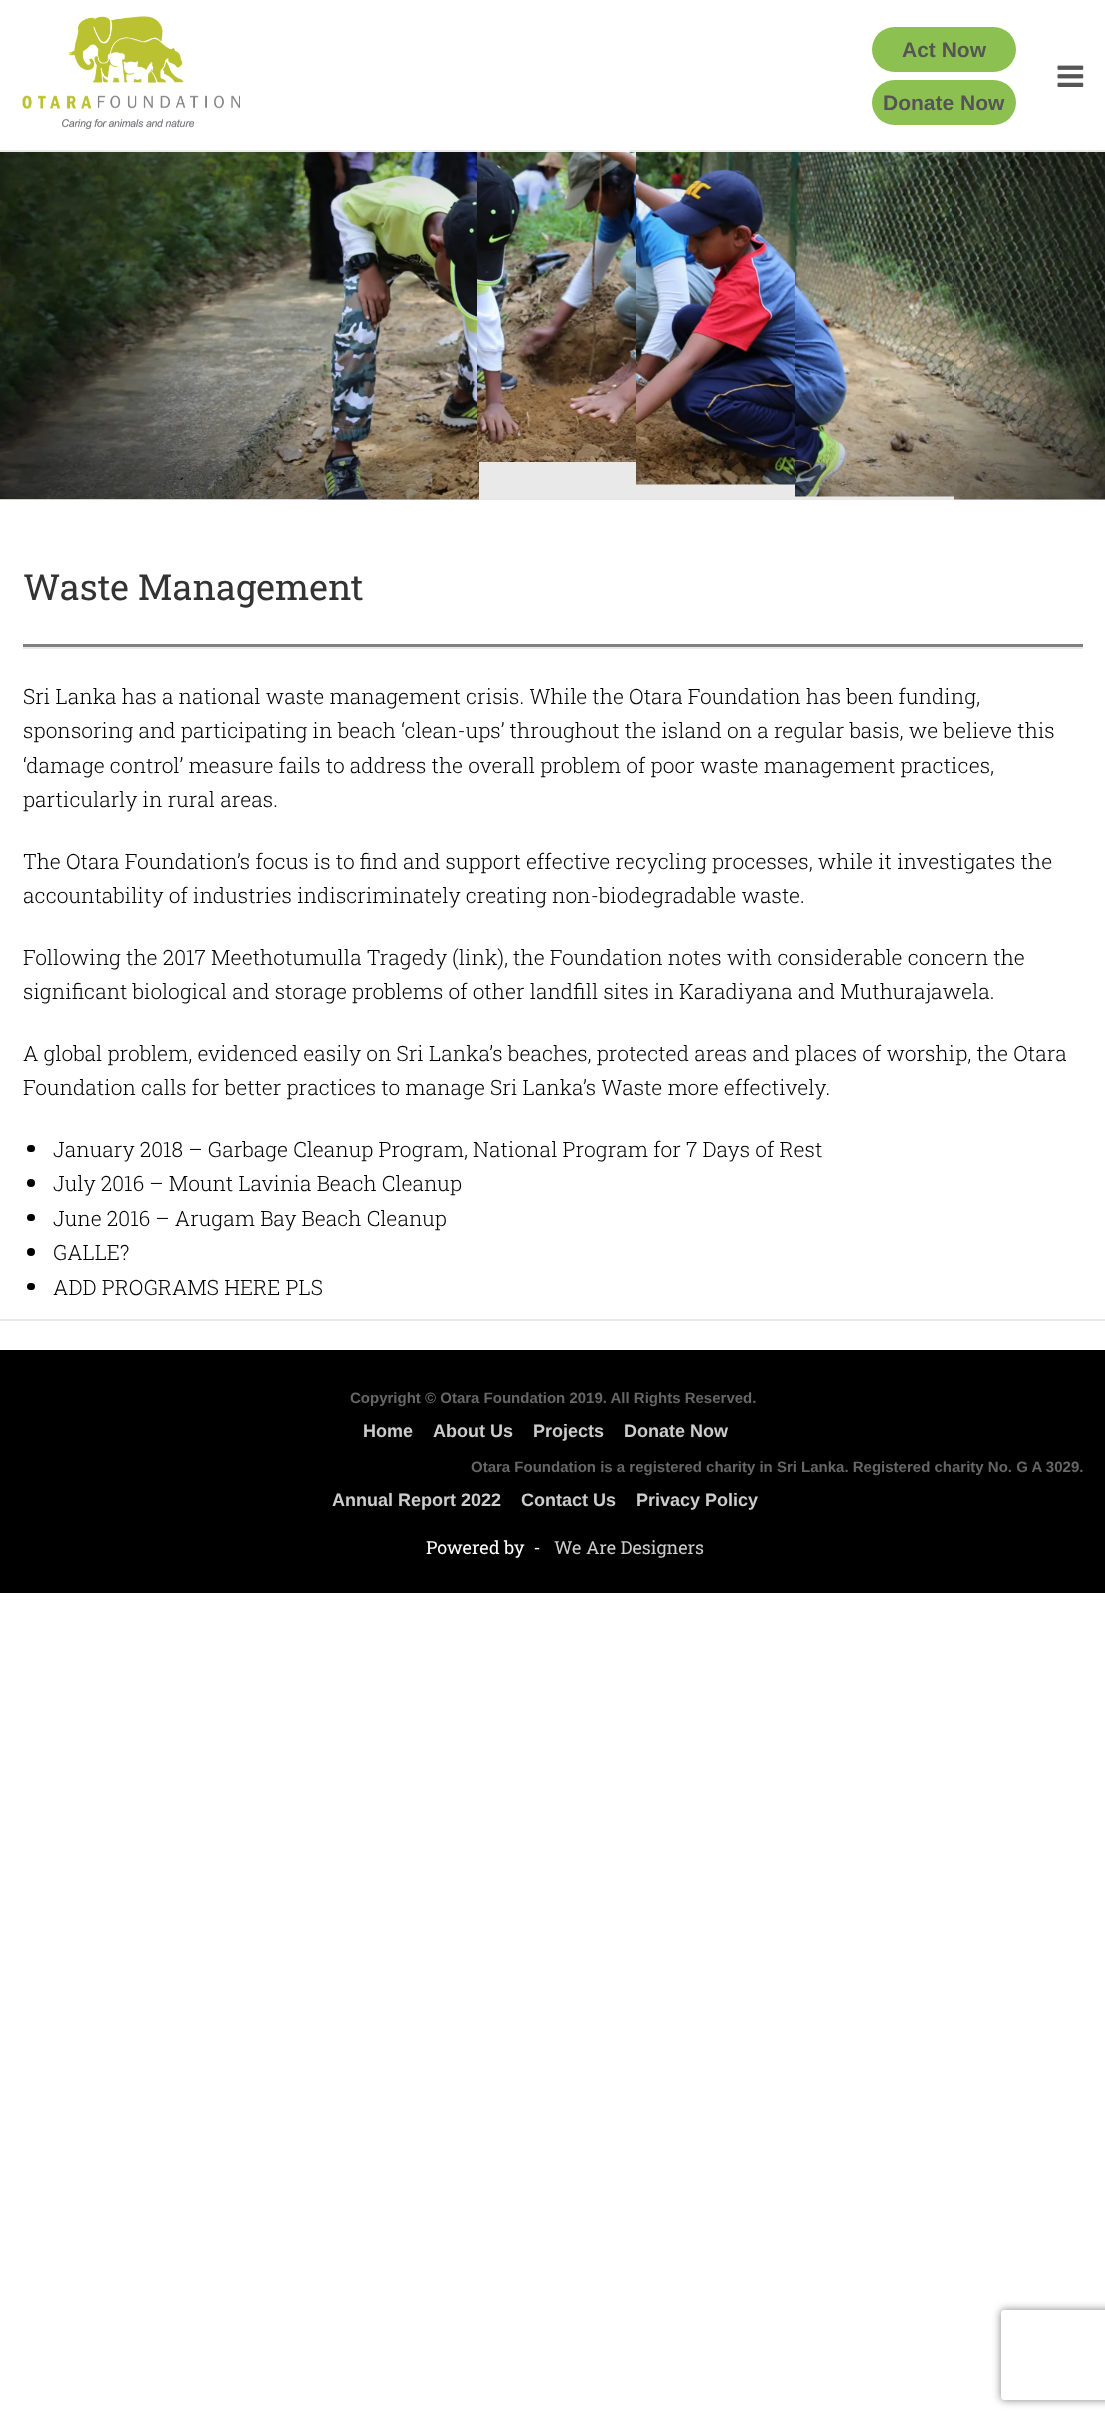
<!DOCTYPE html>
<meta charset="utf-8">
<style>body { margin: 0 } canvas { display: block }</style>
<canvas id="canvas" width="1105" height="2420"></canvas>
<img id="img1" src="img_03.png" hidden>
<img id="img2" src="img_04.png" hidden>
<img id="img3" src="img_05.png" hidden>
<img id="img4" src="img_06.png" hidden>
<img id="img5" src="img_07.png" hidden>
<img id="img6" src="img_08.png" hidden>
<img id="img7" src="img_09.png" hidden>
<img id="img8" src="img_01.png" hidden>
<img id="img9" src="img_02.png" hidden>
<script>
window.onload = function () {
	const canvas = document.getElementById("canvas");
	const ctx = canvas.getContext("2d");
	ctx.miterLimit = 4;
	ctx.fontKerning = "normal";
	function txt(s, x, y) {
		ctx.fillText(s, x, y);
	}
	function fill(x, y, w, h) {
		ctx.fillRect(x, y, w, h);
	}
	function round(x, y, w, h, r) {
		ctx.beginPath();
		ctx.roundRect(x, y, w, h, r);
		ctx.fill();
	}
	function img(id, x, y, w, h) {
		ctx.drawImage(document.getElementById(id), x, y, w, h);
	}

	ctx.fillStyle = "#FFFFFF";
	fill(0, 0, 1105, 2420);
	ctx.fillStyle = "#E9E9E9";
	fill(0, 462, 1105, 38);
	img("img1", 0, 150, 161, 350);
	img("img2", 159, 150, 161, 350);
	img("img3", 318, 150, 161, 350);
	img("img4", 477, 150, 159, 312);
	img("img5", 636, 150, 159, 335);
	img("img6", 795, 150, 159, 347);
	img("img7", 954, 150, 151, 350);
	ctx.fillStyle = "rgba(255, 255, 255, 0.9)";
	fill(0, 150, 1105, 2);
	img("img8", 22, 16, 218, 113);
	ctx.fillStyle = "#8CC152";
	round(872, 27, 144, 45, 22.5);
	round(872, 80, 144, 45, 22.5);
	img("img9", 1057, 65, 27, 22);
	ctx.fillStyle = "#E8E8E8";
	fill(0, 1319, 1105, 2);
	fill(23, 647, 1060, 2);
	ctx.fillStyle = "#808080";
	fill(23, 644, 1060, 3);
	ctx.fillStyle = "#000000";
	round(27, 1145, 8, 7, 3.5);
	ctx.beginPath();
	ctx.arc(31, 1183, 4, 0, Math.PI * 2);
	ctx.fill();
	round(27, 1214, 8, 7, 3.5);
	ctx.beginPath();
	ctx.arc(31, 1252, 4, 0, Math.PI * 2);
	ctx.fill();
	round(27, 1283, 8, 7, 3.5);
	fill(0, 1350, 1105, 243);
	ctx.save();
	ctx.beginPath();
	ctx.moveTo(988, 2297);
	ctx.lineTo(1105, 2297);
	ctx.lineTo(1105, 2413);
	ctx.lineTo(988, 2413);
	ctx.closePath();
	ctx.moveTo(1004, 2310);
	ctx.lineTo(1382, 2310);
	ctx.bezierCurveTo(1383.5, 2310, 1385, 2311.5, 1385, 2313);
	ctx.lineTo(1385, 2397);
	ctx.bezierCurveTo(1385, 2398.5, 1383.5, 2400, 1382, 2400);
	ctx.lineTo(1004, 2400);
	ctx.bezierCurveTo(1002.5, 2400, 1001, 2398.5, 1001, 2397);
	ctx.lineTo(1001, 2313);
	ctx.bezierCurveTo(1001, 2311.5, 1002.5, 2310, 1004, 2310);
	ctx.closePath();
	ctx.clip("evenodd");
	ctx.fillStyle = "#808080";
	ctx.filter = "blur(4px)";
	ctx.beginPath();
	ctx.roundRect(1001, 2310, 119, 90, 3);
	ctx.fill();
	ctx.filter = "none";
	ctx.restore();
	ctx.font = "bold 21px Liberation Sans";
	ctx.fillStyle = "#555555";
	txt("Act Now", 902, 57);
	txt("Donate Now", 883, 110);
	ctx.font = "36px Roboto Slab";
	ctx.fillStyle = "#333333";
	txt("Waste Management", 23, 600);
	ctx.font = "300 21px Roboto Slab";
	ctx.fillStyle = "#000000";
	txt("Sri Lanka has a national waste management crisis. While the Otara Foundation has been funding,", 23, 704);
	txt("sponsoring and participating in beach ‘clean-ups’ throughout the island on a regular basis, we believe this", 23, 738);
	txt("‘damage control’ measure fails to address the overall problem of poor waste management practices,", 23, 773);
	txt("particularly in rural areas.", 23, 807);
	txt("The Otara Foundation’s focus is to find and support effective recycling processes, while it investigates the", 23, 869);
	txt("accountability of industries indiscriminately creating non-biodegradable waste.", 23, 903);
	txt("Following the 2017 Meethotumulla Tragedy (link), the Foundation notes with considerable concern the", 23, 965);
	txt("significant biological and storage problems of other landfill sites in Karadiyana and Muthurajawela.", 23, 999);
	txt("A global problem, evidenced easily on Sri Lanka’s beaches, protected areas and places of worship, the Otara", 23, 1061);
	txt("Foundation calls for better practices to manage Sri Lanka’s Waste more effectively.", 23, 1095);
	txt("January 2018 – Garbage Cleanup Program, National Program for 7 Days of Rest", 53, 1157);
	txt("July 2016 – Mount Lavinia Beach Cleanup", 53, 1191);
	txt("June 2016 – Arugam Bay Beach Cleanup", 53, 1226);
	txt("GALLE?", 53, 1260);
	txt("ADD PROGRAMS HERE PLS", 53, 1295);
	ctx.font = "bold 15px Liberation Sans";
	ctx.fillStyle = "#666666";
	txt("Copyright © Otara Foundation 2019. All Rights Reserved.", 350, 1403);
	ctx.font = "bold 18px Liberation Sans";
	ctx.fillStyle = "#CCCCCC";
	txt("Home", 363, 1437);
	txt("About Us", 433, 1437);
	txt("Projects", 533, 1437);
	txt("Donate Now", 624, 1437);
	ctx.font = "bold 15px Liberation Sans";
	ctx.fillStyle = "#666666";
	txt("Otara Foundation is a registered charity in Sri Lanka. Registered charity No. G A 3029.", 471, 1472);
	ctx.font = "bold 18px Liberation Sans";
	ctx.fillStyle = "#CCCCCC";
	txt("Annual Report 2022", 332, 1506);
	txt("Contact Us", 521, 1506);
	txt("Privacy Policy", 636, 1506);
	ctx.font = "18px Roboto Slab";
	ctx.fillStyle = "#FFFFFF";
	txt("Powered by  -", 426, 1554);
	ctx.fillStyle = "#CCCCCC";
	txt("We Are Designers", 554, 1554);
};
</script>
